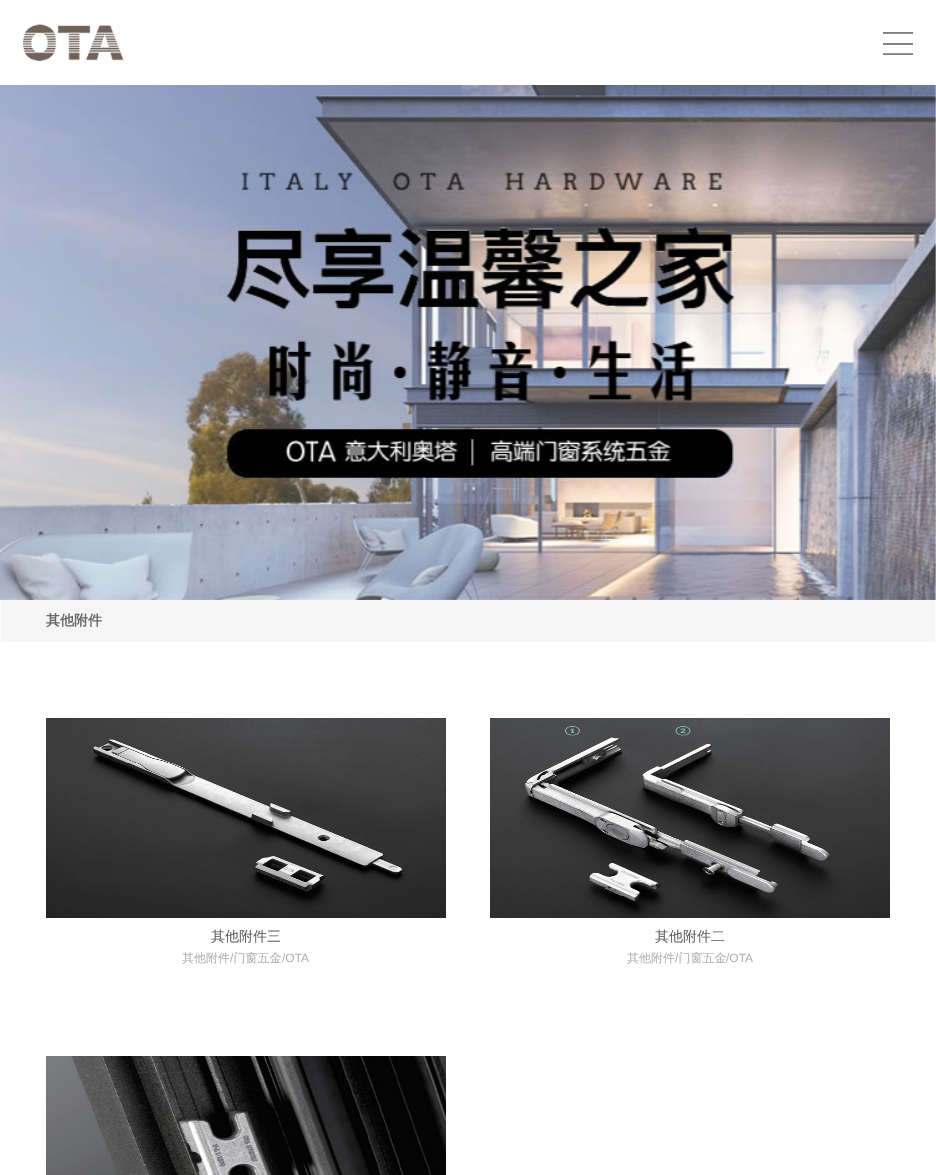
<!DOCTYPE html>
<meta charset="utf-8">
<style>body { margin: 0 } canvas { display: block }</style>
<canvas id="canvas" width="936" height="1175"></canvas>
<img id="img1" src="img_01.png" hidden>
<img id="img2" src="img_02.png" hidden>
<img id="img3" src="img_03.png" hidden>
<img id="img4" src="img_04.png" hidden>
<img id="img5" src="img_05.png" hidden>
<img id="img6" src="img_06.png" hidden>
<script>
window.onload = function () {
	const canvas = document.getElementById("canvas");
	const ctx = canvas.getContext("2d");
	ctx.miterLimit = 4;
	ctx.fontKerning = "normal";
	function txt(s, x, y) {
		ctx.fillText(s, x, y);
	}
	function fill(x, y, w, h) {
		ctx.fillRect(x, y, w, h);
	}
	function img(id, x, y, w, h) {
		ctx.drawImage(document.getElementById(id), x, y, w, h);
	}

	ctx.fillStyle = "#FFFFFF";
	fill(0, 0, 936, 1175);
	img("img1", 23, 24, 101, 37);
	img("img2", 883, 32, 30, 23);
	img("img3", 0, 85, 936, 516);
	ctx.fillStyle = "#F6F6F6";
	fill(1, 600, 934, 42);
	img("img4", 46, 718, 400, 200);
	img("img5", 490, 718, 400, 200);
	img("img6", 46, 1056, 400, 119);
	ctx.font = "bold 14px WenQuanYi Zen Hei";
	ctx.fillStyle = "#666666";
	txt("其他附件", 46, 625);
	ctx.font = "500 14px WenQuanYi Zen Hei";
	ctx.fillStyle = "#575757";
	txt("其他附件三", 211, 941);
	ctx.font = "500 12px WenQuanYi Zen Hei";
	ctx.fillStyle = "#ADADAD";
	txt("其他附件 门窗五金", 182, 962);
	ctx.font = "12px Liberation Sans";
	txt("/", 230, 962);
	txt("/OTA", 282, 962);
	ctx.font = "500 14px WenQuanYi Zen Hei";
	ctx.fillStyle = "#575757";
	txt("其他附件二", 655, 941);
	ctx.font = "500 12px WenQuanYi Zen Hei";
	ctx.fillStyle = "#ADADAD";
	txt("其他附件 门窗五金", 627, 962);
	ctx.font = "12px Liberation Sans";
	txt("/", 675, 962);
	txt("/OTA", 726, 962);
};
</script>
